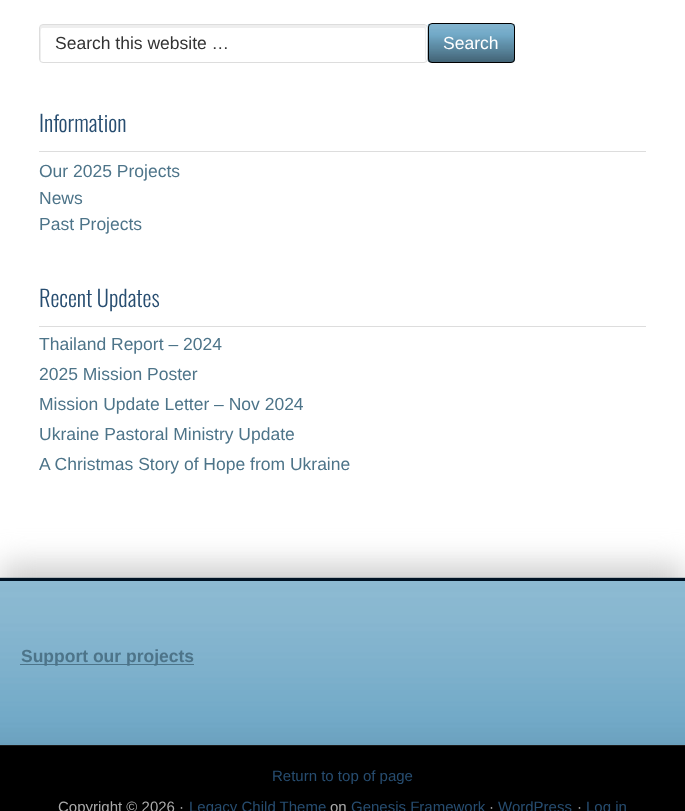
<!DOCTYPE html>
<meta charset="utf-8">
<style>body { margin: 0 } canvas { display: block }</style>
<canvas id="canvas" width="685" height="811"></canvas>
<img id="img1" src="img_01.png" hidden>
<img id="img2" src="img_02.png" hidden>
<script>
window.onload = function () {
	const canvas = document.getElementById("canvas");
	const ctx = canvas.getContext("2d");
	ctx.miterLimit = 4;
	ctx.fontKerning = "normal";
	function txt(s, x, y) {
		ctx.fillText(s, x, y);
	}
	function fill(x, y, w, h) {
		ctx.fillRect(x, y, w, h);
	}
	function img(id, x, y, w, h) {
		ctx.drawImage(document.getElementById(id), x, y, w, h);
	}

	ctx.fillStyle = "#FFFFFF";
	fill(0, 0, 685, 811);
	ctx.fillStyle = "#EEEEEE";
	ctx.beginPath();
	ctx.moveTo(42, 28);
	ctx.lineTo(424, 28);
	ctx.bezierCurveTo(426, 28, 425, 42, 425, 44);
	ctx.lineTo(425, 61);
	ctx.bezierCurveTo(426, 60, 426, 59, 426, 58);
	ctx.lineTo(426, 28);
	ctx.bezierCurveTo(426, 26, 425, 25, 424, 25);
	ctx.lineTo(42, 25);
	ctx.bezierCurveTo(41, 25, 40, 26, 40, 28);
	ctx.lineTo(40, 58);
	ctx.bezierCurveTo(40, 59, 40, 60, 41, 61);
	ctx.lineTo(41, 39);
	ctx.bezierCurveTo(41, 38, 40, 28, 42, 28);
	ctx.closePath();
	ctx.fill();
	ctx.beginPath();
	ctx.roundRect(39.5, 24.5, 388, 38, 3.5);
	ctx.strokeStyle = "#DDDDDD";
	ctx.stroke();
	img("img1", 427, 24, 88, 39);
	ctx.beginPath();
	ctx.roundRect(428.5, 23.5, 86, 39, 3.5);
	ctx.strokeStyle = "#000000";
	ctx.stroke();
	ctx.fillStyle = "#DDDDDD";
	fill(39, 151, 607, 1);
	fill(39, 326, 607, 1);
	ctx.fillStyle = "#CCCCCC";
	ctx.filter = "blur(15.5px)";
	ctx.beginPath();
	ctx.rect(0, 565, 685, 168);
	ctx.fill();
	ctx.filter = "none";
	img("img2", 0, 577, 685, 168);
	ctx.fillStyle = "#001324";
	fill(0, 578, 685, 3);
	ctx.fillStyle = "#4D7489";
	fill(20, 664, 174, 1);
	ctx.fillStyle = "#000000";
	fill(0, 746, 685, 65);
	ctx.fillStyle = "#191919";
	fill(0, 745, 685, 1);
	ctx.font = "17.5px Liberation Sans";
	ctx.fillStyle = "#333333";
	txt("Search this website …", 55, 49);
	ctx.fillStyle = "#FFFFFF";
	txt("Search", 443, 49);
	ctx.font = "300 22.5px Oswald";
	ctx.fillStyle = "#274D70";
	txt("Information", 39, 132);
	ctx.font = "17.5px Liberation Sans";
	ctx.fillStyle = "#4D7489";
	txt("Our 2025 Projects", 39, 177);
	txt("News", 39, 204);
	txt("Past Projects", 39, 230);
	ctx.font = "300 22.5px Oswald";
	ctx.fillStyle = "#274D70";
	txt("Recent Updates", 39, 307);
	ctx.font = "17.5px Liberation Sans";
	ctx.fillStyle = "#4D7489";
	txt("Thailand Report – 2024", 39, 350);
	txt("2025 Mission Poster", 39, 380);
	txt("Mission Update Letter – Nov 2024", 39, 410);
	txt("Ukraine Pastoral Ministry Update", 39, 440);
	txt("A Christmas Story of Hope from Ukraine", 39, 470);
	ctx.font = "bold 17.5px Liberation Sans";
	txt("Support our projects", 21, 662);
	ctx.font = "15px Liberation Sans";
	ctx.fillStyle = "#274D70";
	txt("Return to top of page", 272, 781);
	ctx.fillStyle = "#AAAAAA";
	txt("Copyright © 2026 ·", 58, 812);
	ctx.fillStyle = "#274D70";
	txt("Legacy Child Theme", 189, 812);
	ctx.fillStyle = "#AAAAAA";
	txt("on", 330, 812);
	ctx.fillStyle = "#274D70";
	txt("Genesis Framework", 351, 812);
	ctx.fillStyle = "#AAAAAA";
	txt("·", 489, 812);
	ctx.fillStyle = "#274D70";
	txt("WordPress", 498, 812);
	ctx.fillStyle = "#AAAAAA";
	txt("·", 577, 812);
	ctx.fillStyle = "#274D70";
	txt("Log in", 586, 812);
};
</script>
